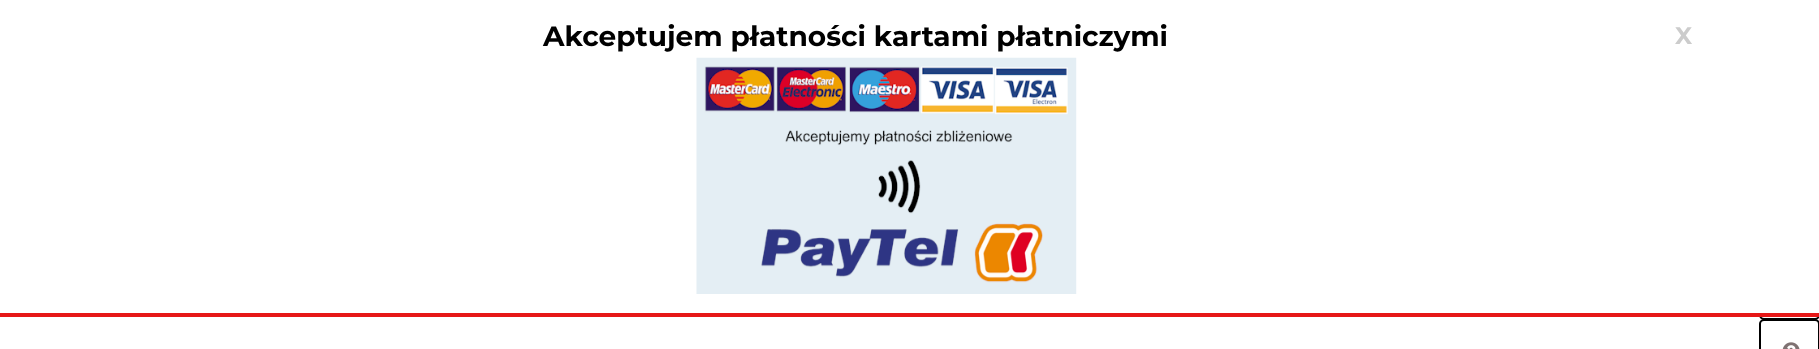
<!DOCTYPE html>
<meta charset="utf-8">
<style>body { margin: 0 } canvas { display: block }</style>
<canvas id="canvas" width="1819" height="349"></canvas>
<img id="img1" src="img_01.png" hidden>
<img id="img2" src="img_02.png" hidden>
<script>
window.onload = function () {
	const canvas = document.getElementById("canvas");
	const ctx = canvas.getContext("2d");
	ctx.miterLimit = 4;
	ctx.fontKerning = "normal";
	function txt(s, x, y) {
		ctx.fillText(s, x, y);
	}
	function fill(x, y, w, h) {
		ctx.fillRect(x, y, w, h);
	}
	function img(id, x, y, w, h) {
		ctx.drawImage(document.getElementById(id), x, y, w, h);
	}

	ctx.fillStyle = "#FFFFFF";
	fill(0, 0, 1819, 349);
	ctx.beginPath();
	ctx.roundRect(1760, 260, 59, 59, 4);
	ctx.strokeStyle = "#000000";
	ctx.lineWidth = 2;
	ctx.stroke();
	fill(1759, 259, 60, 54);
	ctx.fillStyle = "#E61717";
	fill(0, 313, 1819, 4);
	img("img1", 696, 57, 381, 237);
	ctx.fillStyle = "#FFFFFF";
	ctx.beginPath();
	ctx.roundRect(1760, 320, 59, 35, 4);
	ctx.fill();
	ctx.stroke();
	img("img2", 1782, 342, 18, 7);
	ctx.font = "bold 28px Montserrat";
	ctx.fillStyle = "#000000";
	txt("Akceptujem płatności kartami płatniczymi", 543, 46);
	ctx.font = "bold 24px Montserrat";
	ctx.fillStyle = "#CCCCCC";
	txt("X", 1675, 44);
};
</script>
